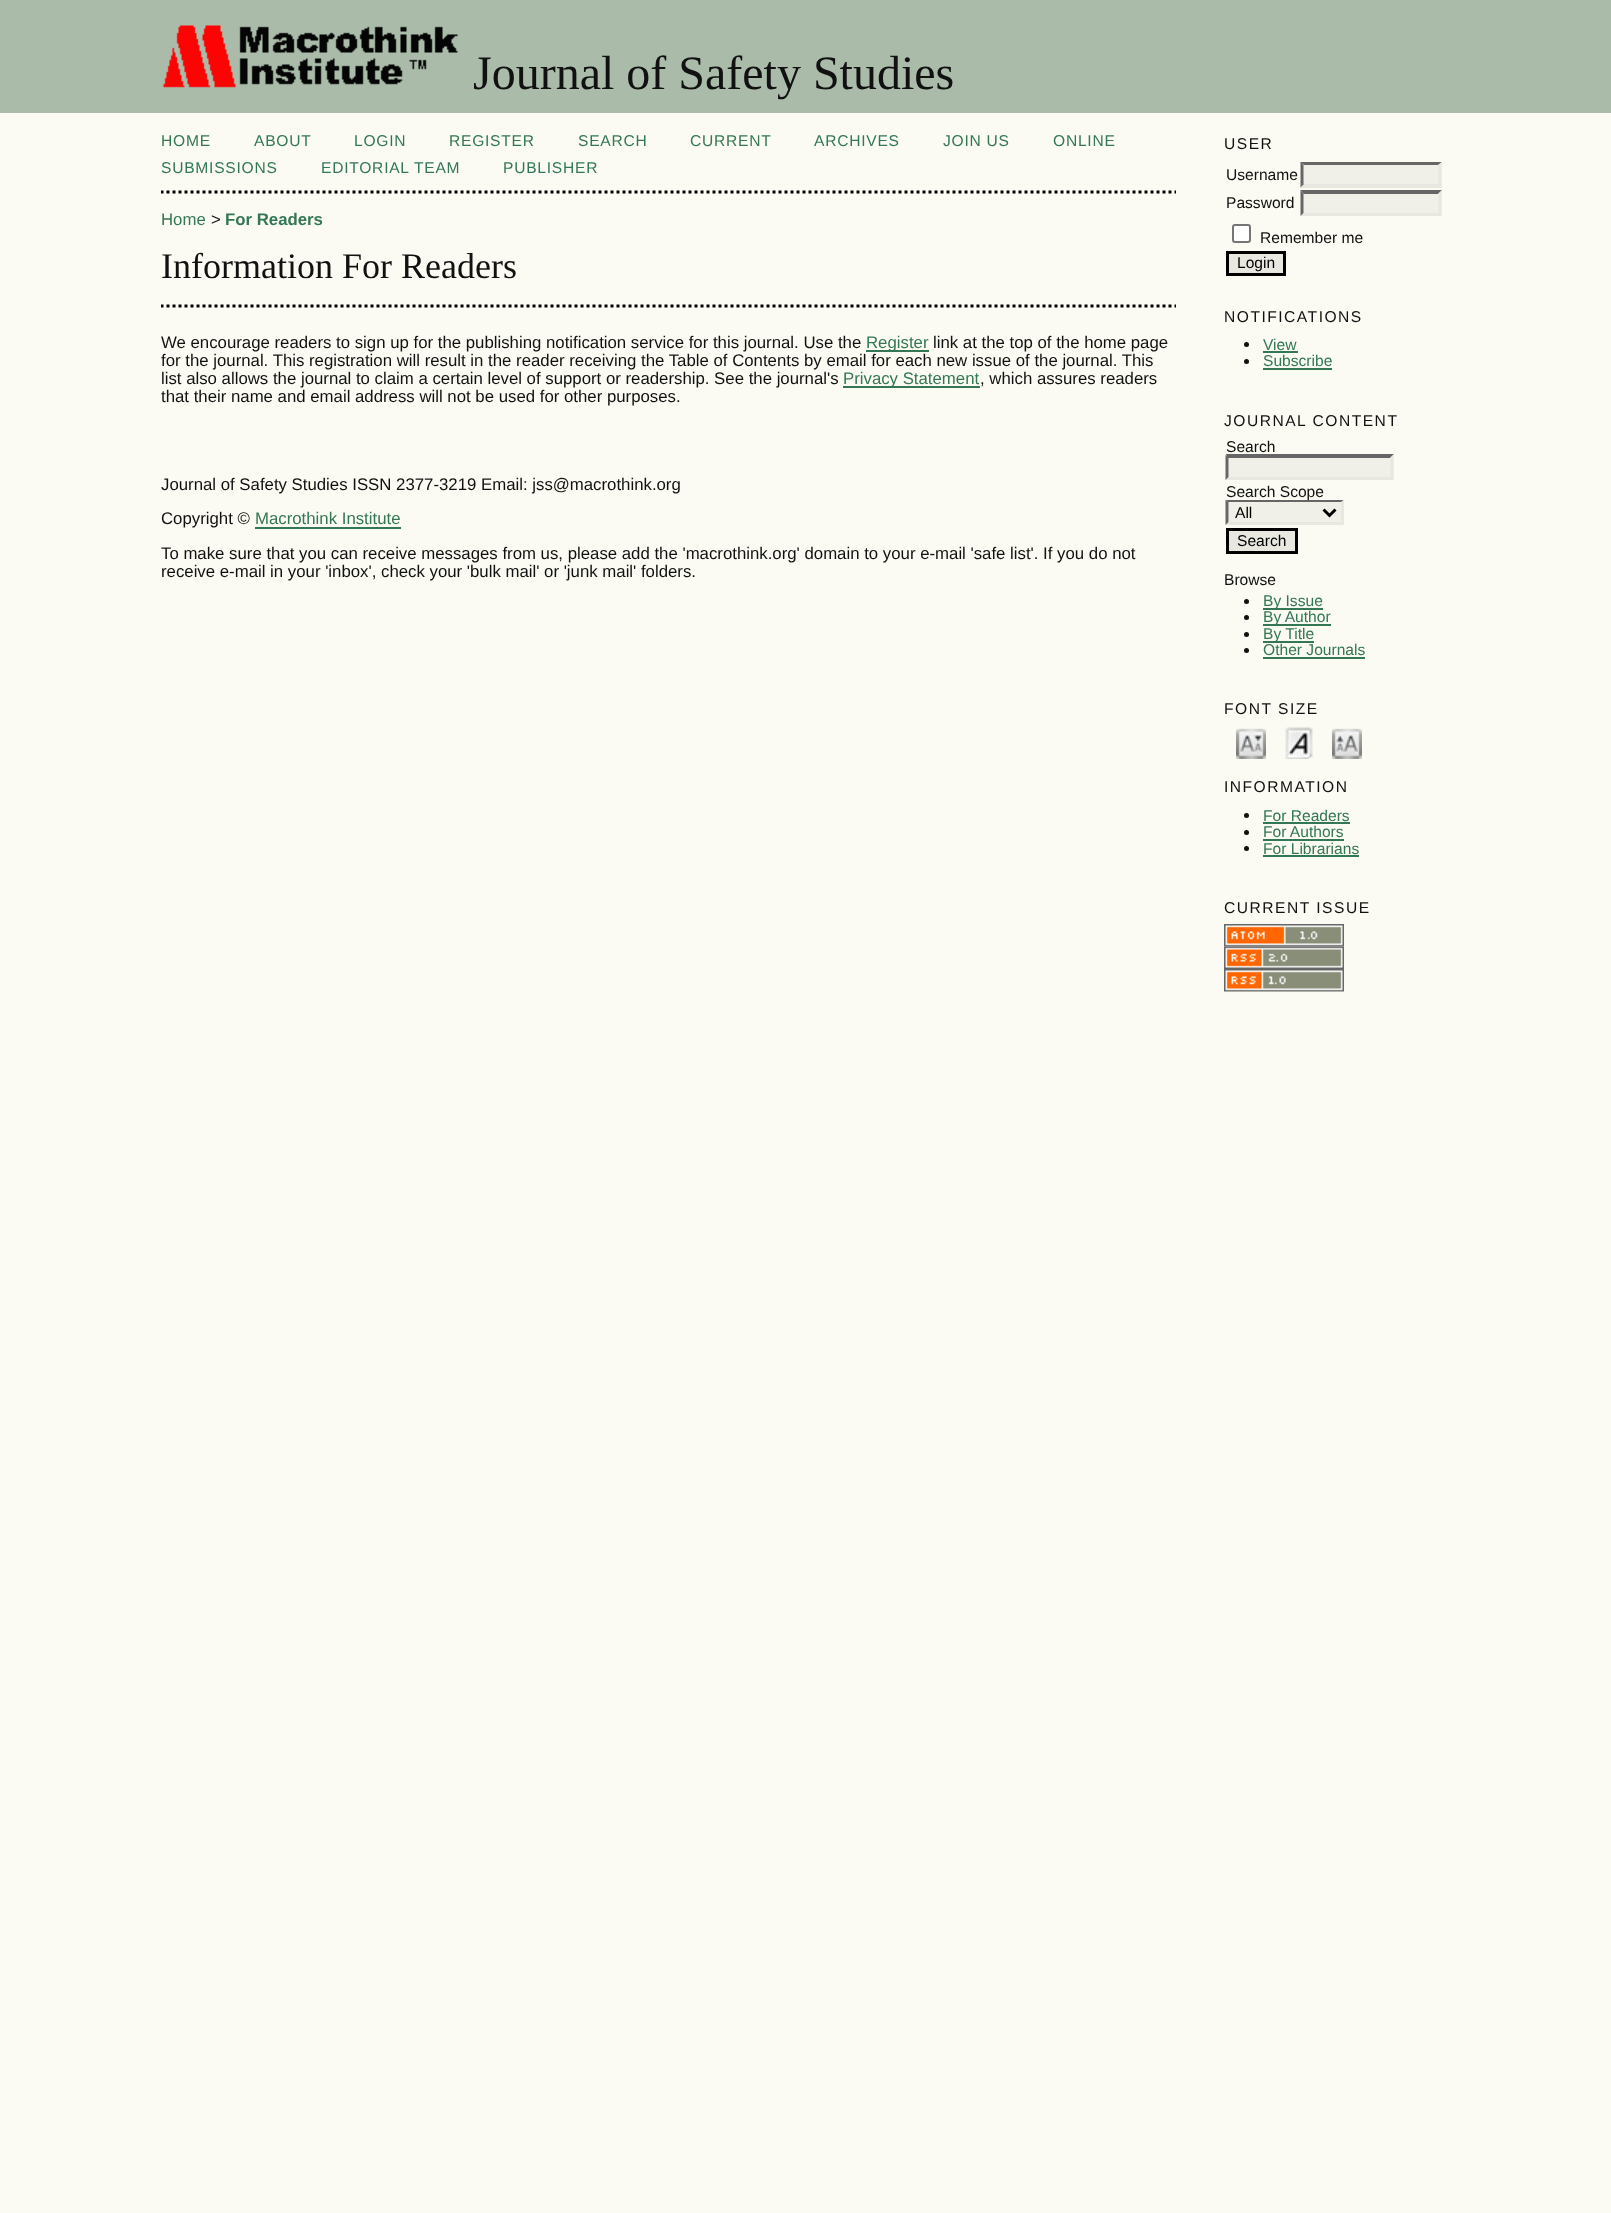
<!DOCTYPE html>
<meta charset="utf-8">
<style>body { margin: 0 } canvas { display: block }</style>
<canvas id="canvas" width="1611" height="2213"></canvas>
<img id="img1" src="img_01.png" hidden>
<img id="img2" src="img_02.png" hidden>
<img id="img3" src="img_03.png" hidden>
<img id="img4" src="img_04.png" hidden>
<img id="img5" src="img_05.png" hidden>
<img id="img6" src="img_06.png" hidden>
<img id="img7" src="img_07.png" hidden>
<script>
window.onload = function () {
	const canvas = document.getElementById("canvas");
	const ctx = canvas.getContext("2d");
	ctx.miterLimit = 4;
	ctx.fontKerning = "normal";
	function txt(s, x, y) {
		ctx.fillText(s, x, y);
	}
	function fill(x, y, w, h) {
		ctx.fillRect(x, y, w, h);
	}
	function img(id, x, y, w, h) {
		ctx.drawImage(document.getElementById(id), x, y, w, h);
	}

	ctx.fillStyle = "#FBFBF3";
	fill(0, 0, 1611, 2213);
	ctx.fillStyle = "#AABBAA";
	fill(0, 0, 1611, 113);
	img("img1", 163, 25, 295, 63);
	ctx.save();
	ctx.beginPath();
	ctx.rect(161, 113, 1015, 532);
	ctx.clip();
	ctx.beginPath();
	ctx.moveTo(160.5, 192);
	ctx.lineTo(1176, 192);
	ctx.strokeStyle = "#000000";
	ctx.lineWidth = 3;
	ctx.setLineDash([3, 3]);
	ctx.stroke();
	ctx.beginPath();
	ctx.moveTo(160.5, 306);
	ctx.lineTo(1176, 306);
	ctx.stroke();
	ctx.restore();
	ctx.fillStyle = "#337755";
	fill(866, 350, 63, 2);
	fill(843, 386, 137, 2);
	fill(255, 527, 146, 2);
	ctx.fillStyle = "#F0F0E8";
	fill(1301, 162, 141, 26);
	ctx.fillStyle = "#666666";
	ctx.beginPath();
	ctx.moveTo(1300, 162);
	ctx.lineTo(1442, 162);
	ctx.lineTo(1438, 165);
	ctx.lineTo(1304, 165);
	ctx.closePath();
	ctx.fill();
	ctx.fillStyle = "#E8E8E1";
	ctx.beginPath();
	ctx.moveTo(1441.5, 162);
	ctx.lineTo(1441.5, 187.5);
	ctx.lineTo(1438.5, 184.5);
	ctx.lineTo(1438.5, 165);
	ctx.closePath();
	ctx.fill();
	ctx.beginPath();
	ctx.moveTo(1442, 188);
	ctx.lineTo(1300, 188);
	ctx.lineTo(1304, 184);
	ctx.lineTo(1438, 184);
	ctx.closePath();
	ctx.fill();
	ctx.fillStyle = "#666666";
	ctx.beginPath();
	ctx.moveTo(1300.5, 187.5);
	ctx.lineTo(1300.5, 162);
	ctx.lineTo(1303.5, 165);
	ctx.lineTo(1303.5, 184.5);
	ctx.closePath();
	ctx.fill();
	ctx.fillStyle = "#F0F0E8";
	fill(1301, 191, 141, 25);
	ctx.fillStyle = "#666666";
	ctx.beginPath();
	ctx.moveTo(1300, 190);
	ctx.lineTo(1442, 190);
	ctx.lineTo(1438, 194);
	ctx.lineTo(1304, 194);
	ctx.closePath();
	ctx.fill();
	ctx.fillStyle = "#E8E8E1";
	ctx.beginPath();
	ctx.moveTo(1441.5, 190.5);
	ctx.lineTo(1441.5, 216);
	ctx.lineTo(1438.5, 213);
	ctx.lineTo(1438.5, 193.5);
	ctx.closePath();
	ctx.fill();
	ctx.beginPath();
	ctx.moveTo(1442, 216);
	ctx.lineTo(1300, 216);
	ctx.lineTo(1304, 213);
	ctx.lineTo(1438, 213);
	ctx.closePath();
	ctx.fill();
	ctx.fillStyle = "#666666";
	ctx.beginPath();
	ctx.moveTo(1300.5, 216);
	ctx.lineTo(1300.5, 190.5);
	ctx.lineTo(1303.5, 193.5);
	ctx.lineTo(1303.5, 213);
	ctx.closePath();
	ctx.fill();
	ctx.fillStyle = "#FFFFFF";
	ctx.beginPath();
	ctx.roundRect(1233, 225, 17, 17, 2);
	ctx.fill();
	ctx.strokeStyle = "#767676";
	ctx.lineWidth = 2;
	ctx.stroke();
	ctx.fillStyle = "#E8E8E1";
	ctx.beginPath();
	ctx.rect(1227.5, 252.5, 57, 22);
	ctx.fill();
	ctx.strokeStyle = "#000000";
	ctx.lineWidth = 3;
	ctx.stroke();
	ctx.fillStyle = "#111111";
	ctx.beginPath();
	ctx.arc(1246.5, 344.5, 2.5, 0, Math.PI * 2);
	ctx.fill();
	ctx.fillStyle = "#337755";
	fill(1263, 351, 35, 2);
	ctx.fillStyle = "#111111";
	ctx.beginPath();
	ctx.arc(1246.5, 361.5, 2.5, 0, Math.PI * 2);
	ctx.fill();
	ctx.fillStyle = "#337755";
	fill(1263, 368, 69, 2);
	ctx.fillStyle = "#F0F0E8";
	fill(1226, 455, 168, 25);
	ctx.fillStyle = "#666666";
	ctx.beginPath();
	ctx.moveTo(1226, 454);
	ctx.lineTo(1394, 454);
	ctx.lineTo(1390, 458);
	ctx.lineTo(1228, 458);
	ctx.closePath();
	ctx.fill();
	ctx.fillStyle = "#E8E8E1";
	ctx.beginPath();
	ctx.moveTo(1393.5, 454.5);
	ctx.lineTo(1393.5, 480);
	ctx.lineTo(1390.5, 477);
	ctx.lineTo(1390.5, 457.5);
	ctx.closePath();
	ctx.fill();
	ctx.beginPath();
	ctx.moveTo(1394, 480);
	ctx.lineTo(1226, 480);
	ctx.lineTo(1228, 477);
	ctx.lineTo(1390, 477);
	ctx.closePath();
	ctx.fill();
	ctx.fillStyle = "#666666";
	ctx.beginPath();
	ctx.moveTo(1225.5, 480);
	ctx.lineTo(1225.5, 454.5);
	ctx.lineTo(1228.5, 457.5);
	ctx.lineTo(1228.5, 477);
	ctx.closePath();
	ctx.fill();
	ctx.fillStyle = "#E8E8E1";
	ctx.beginPath();
	ctx.rect(1227.5, 529.5, 69, 23);
	ctx.fill();
	ctx.stroke();
	ctx.fillStyle = "#111111";
	ctx.beginPath();
	ctx.arc(1246.5, 601.5, 2.5, 0, Math.PI * 2);
	ctx.fill();
	ctx.fillStyle = "#337755";
	fill(1263, 608, 60, 2);
	ctx.fillStyle = "#111111";
	ctx.beginPath();
	ctx.arc(1246.5, 617.5, 2.5, 0, Math.PI * 2);
	ctx.fill();
	ctx.fillStyle = "#337755";
	fill(1263, 624, 68, 2);
	ctx.fillStyle = "#111111";
	ctx.beginPath();
	ctx.arc(1246.5, 634.5, 2.5, 0, Math.PI * 2);
	ctx.fill();
	ctx.fillStyle = "#337755";
	fill(1263, 641, 51, 2);
	ctx.fillStyle = "#111111";
	ctx.beginPath();
	ctx.arc(1246.5, 650.5, 2.5, 0, Math.PI * 2);
	ctx.fill();
	ctx.fillStyle = "#337755";
	fill(1263, 657, 102, 2);
	img("img2", 1236, 728, 30, 31);
	img("img3", 1285, 727, 28, 32);
	img("img4", 1332, 728, 30, 31);
	ctx.fillStyle = "#111111";
	ctx.beginPath();
	ctx.arc(1246.5, 815.5, 2.5, 0, Math.PI * 2);
	ctx.fill();
	ctx.fillStyle = "#337755";
	fill(1263, 822, 87, 2);
	ctx.fillStyle = "#111111";
	ctx.beginPath();
	ctx.arc(1246.5, 832.5, 2.5, 0, Math.PI * 2);
	ctx.fill();
	ctx.fillStyle = "#337755";
	fill(1263, 839, 81, 2);
	ctx.fillStyle = "#111111";
	ctx.beginPath();
	ctx.arc(1246.5, 848.5, 2.5, 0, Math.PI * 2);
	ctx.fill();
	ctx.fillStyle = "#337755";
	fill(1263, 855, 96, 2);
	img("img5", 1224, 924, 120, 23);
	img("img6", 1224, 946, 120, 23);
	img("img7", 1224, 969, 120, 23);
	ctx.font = "48px Liberation Serif";
	ctx.fillStyle = "#111111";
	txt("Journal of Safety Studies", 473, 89);
	ctx.letterSpacing = "0.75px";
	ctx.font = "15.6px Liberation Sans";
	ctx.fillStyle = "#337755";
	txt("HOME", 161, 146);
	txt("ABOUT", 254, 146);
	txt("LOGIN", 354, 146);
	txt("REGISTER", 449, 146);
	txt("SEARCH", 578, 146);
	txt("CURRENT", 690, 146);
	txt("ARCHIVES", 814, 146);
	txt("JOIN US", 943, 146);
	txt("ONLINE", 1053, 146);
	txt("SUBMISSIONS", 161, 173);
	txt("EDITORIAL TEAM", 321, 173);
	txt("PUBLISHER", 503, 173);
	ctx.letterSpacing = "0px";
	ctx.font = "16.8px Liberation Sans";
	txt("Home", 161, 225);
	ctx.fillStyle = "#111111";
	txt(">", 211, 225);
	ctx.font = "bold 16.8px Liberation Sans";
	ctx.fillStyle = "#337755";
	txt("For Readers", 225, 225);
	ctx.font = "36px Liberation Serif";
	ctx.fillStyle = "#111111";
	txt("Information For Readers", 161, 278);
	ctx.font = "16.8px Liberation Sans";
	txt("We encourage readers to sign up for the publishing notification service for this journal. Use the", 161, 348);
	ctx.fillStyle = "#337755";
	txt("Register", 866, 348);
	ctx.fillStyle = "#111111";
	txt("link at the top of the home page", 933, 348);
	txt("for the journal. This registration will result in the reader receiving the Table of Contents by email for each new issue of the journal. This", 161, 366);
	txt("list also allows the journal to claim a certain level of support or readership. See the journal's", 161, 384);
	ctx.fillStyle = "#337755";
	txt("Privacy Statement", 843, 384);
	ctx.fillStyle = "#111111";
	txt(", which assures readers", 980, 384);
	txt("that their name and email address will not be used for other purposes.", 161, 402);
	txt("Journal of Safety Studies ISSN 2377-3219 Email: jss@macrothink.org", 161, 490);
	txt("Copyright ©", 161, 524);
	ctx.fillStyle = "#337755";
	txt("Macrothink Institute", 255, 524);
	ctx.fillStyle = "#111111";
	txt("To make sure that you can receive messages from us, please add the 'macrothink.org' domain to your e-mail 'safe list'. If you do not", 161, 559);
	txt("receive e-mail in your 'inbox', check your 'bulk mail' or 'junk mail' folders.", 161, 577);
	ctx.letterSpacing = "1.5px";
	ctx.font = "15.6px Liberation Sans";
	txt("USER", 1224, 149);
	ctx.letterSpacing = "0px";
	txt("Username", 1226, 180);
	txt("Password", 1226, 208);
	txt("Remember me", 1260, 243);
	ctx.fillStyle = "#000000";
	txt("Login", 1237, 268);
	ctx.letterSpacing = "1.5px";
	ctx.fillStyle = "#111111";
	txt("NOTIFICATIONS", 1224, 322);
	ctx.letterSpacing = "0px";
	ctx.fillStyle = "#337755";
	txt("View", 1263, 350);
	txt("Subscribe", 1263, 366);
	ctx.letterSpacing = "1.5px";
	ctx.fillStyle = "#111111";
	txt("JOURNAL CONTENT", 1224, 426);
	ctx.letterSpacing = "0px";
	txt("Search", 1226, 452);
	txt("Search Scope", 1226, 497);
	ctx.fillStyle = "#F0F0E8";
	fill(1226, 500, 118, 25);
	ctx.fillStyle = "#666666";
	ctx.beginPath();
	ctx.moveTo(1226, 500);
	ctx.lineTo(1344, 500);
	ctx.lineTo(1341, 502);
	ctx.lineTo(1228, 502);
	ctx.closePath();
	ctx.fill();
	ctx.fillStyle = "#E8E8E1";
	ctx.beginPath();
	ctx.moveTo(1344, 499.5);
	ctx.lineTo(1344, 525);
	ctx.lineTo(1341, 522);
	ctx.lineTo(1341, 502.5);
	ctx.closePath();
	ctx.fill();
	ctx.beginPath();
	ctx.moveTo(1344, 525);
	ctx.lineTo(1226, 525);
	ctx.lineTo(1228, 522);
	ctx.lineTo(1341, 522);
	ctx.closePath();
	ctx.fill();
	ctx.fillStyle = "#666666";
	ctx.beginPath();
	ctx.moveTo(1225.5, 525);
	ctx.lineTo(1225.5, 499.5);
	ctx.lineTo(1228.5, 502.5);
	ctx.lineTo(1228.5, 522);
	ctx.closePath();
	ctx.fill();
	ctx.beginPath();
	ctx.moveTo(1323.5, 509.5);
	ctx.lineTo(1329.5, 515.5);
	ctx.lineTo(1335.5, 509.5);
	ctx.stroke();
	ctx.fillStyle = "#000000";
	txt("All", 1235, 518);
	txt("Search", 1237, 546);
	ctx.fillStyle = "#111111";
	txt("Browse", 1224, 585);
	ctx.fillStyle = "#337755";
	txt("By Issue", 1263, 606);
	txt("By Author", 1263, 622);
	txt("By Title", 1263, 639);
	txt("Other Journals", 1263, 655);
	ctx.letterSpacing = "1.5px";
	ctx.fillStyle = "#111111";
	txt("FONT SIZE", 1224, 714);
	txt("INFORMATION", 1224, 792);
	ctx.letterSpacing = "0px";
	ctx.fillStyle = "#337755";
	txt("For Readers", 1263, 821);
	txt("For Authors", 1263, 837);
	txt("For Librarians", 1263, 854);
	ctx.letterSpacing = "1.5px";
	ctx.fillStyle = "#111111";
	txt("CURRENT ISSUE", 1224, 913);
};
</script>
